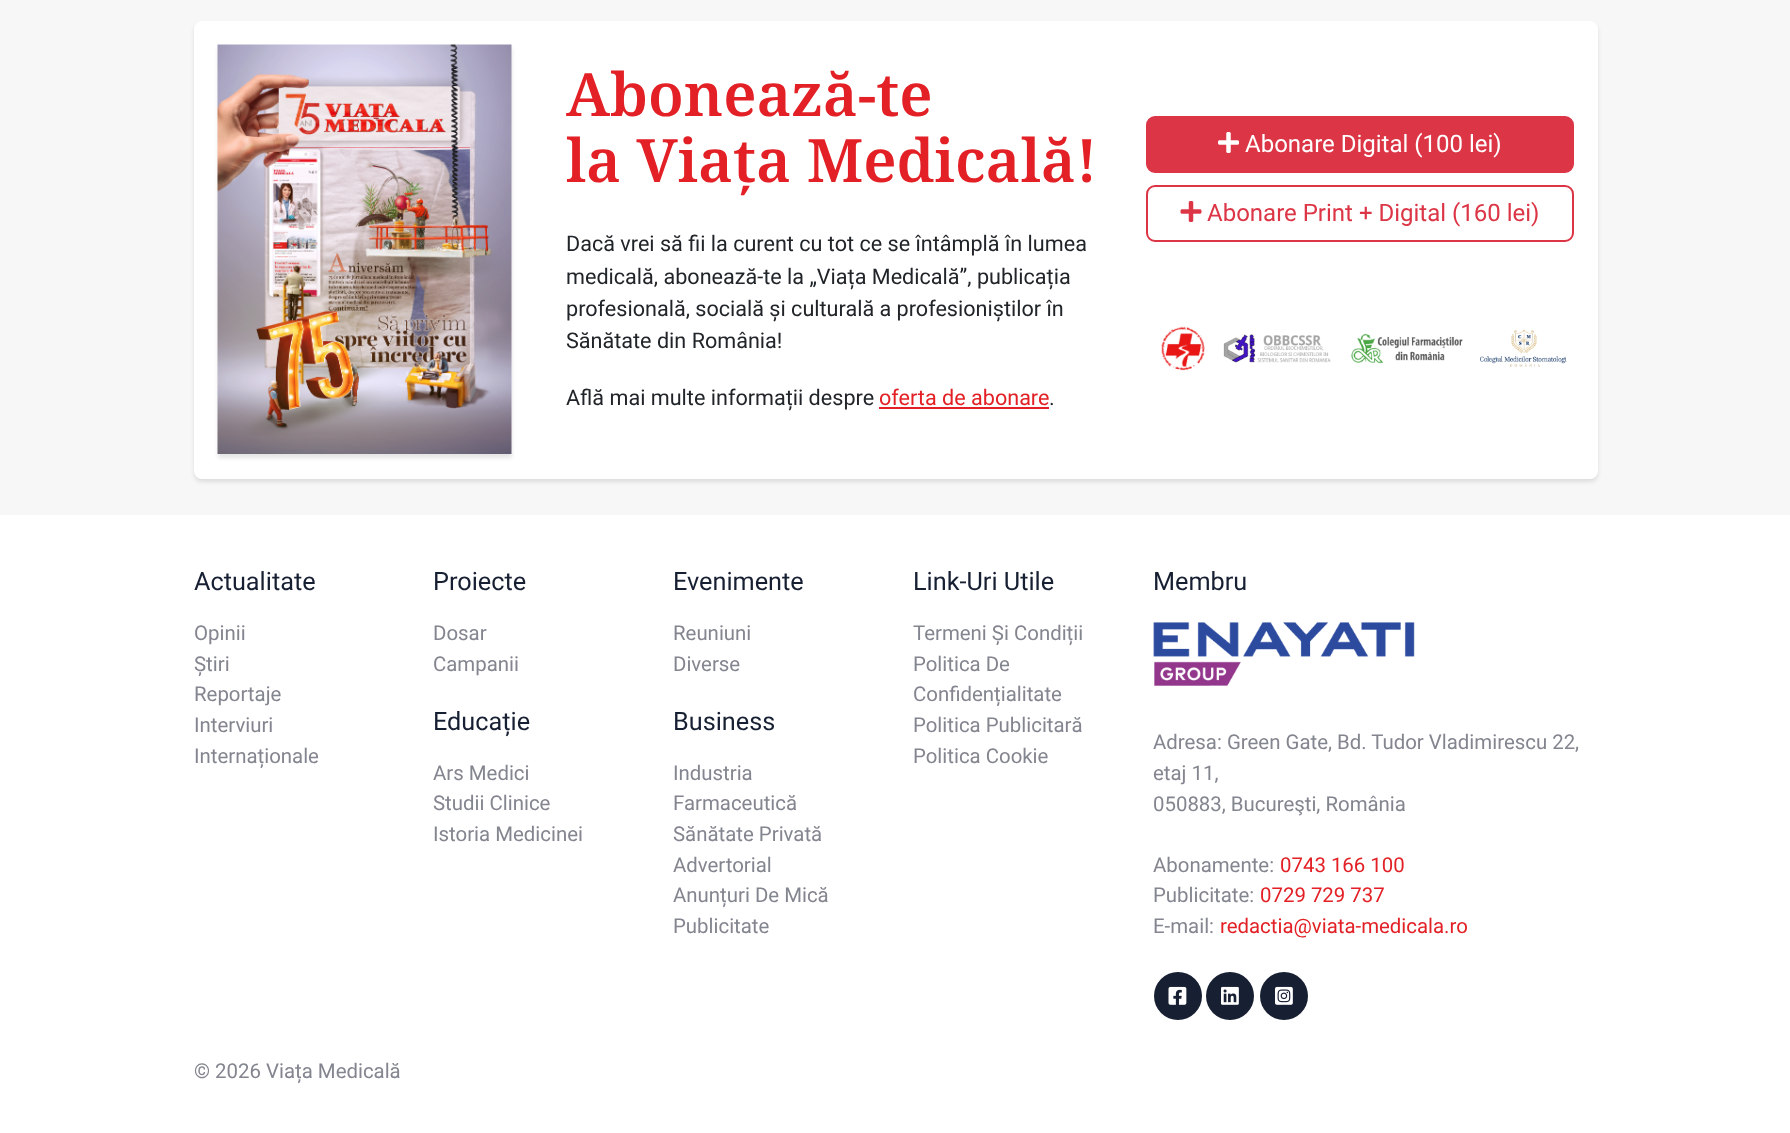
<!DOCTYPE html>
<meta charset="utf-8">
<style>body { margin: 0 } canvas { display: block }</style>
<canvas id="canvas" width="1790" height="1133"></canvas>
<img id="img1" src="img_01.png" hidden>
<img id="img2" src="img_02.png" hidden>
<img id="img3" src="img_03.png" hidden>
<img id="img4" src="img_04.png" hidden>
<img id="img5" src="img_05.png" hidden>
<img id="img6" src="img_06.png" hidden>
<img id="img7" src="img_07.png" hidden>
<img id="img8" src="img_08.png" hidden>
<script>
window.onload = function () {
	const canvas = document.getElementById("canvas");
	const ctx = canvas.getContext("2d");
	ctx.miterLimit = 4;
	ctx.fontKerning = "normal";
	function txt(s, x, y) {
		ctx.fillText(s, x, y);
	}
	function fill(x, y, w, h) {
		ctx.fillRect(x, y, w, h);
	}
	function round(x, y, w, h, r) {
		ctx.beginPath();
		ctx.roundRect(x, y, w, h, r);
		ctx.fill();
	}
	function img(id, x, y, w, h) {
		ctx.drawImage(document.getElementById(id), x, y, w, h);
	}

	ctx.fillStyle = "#F7F7F7";
	fill(0, 0, 1790, 1133);
	ctx.fillStyle = "rgba(0, 0, 0, 0.1)";
	ctx.filter = "blur(2px)";
	ctx.beginPath();
	ctx.roundRect(194, 24, 1404, 458, 8);
	ctx.fill();
	ctx.filter = "none";
	ctx.fillStyle = "#FFFFFF";
	round(194, 21, 1404, 458, 8);
	ctx.fillStyle = "rgba(0, 0, 0, 0.1)";
	ctx.filter = "blur(2px)";
	ctx.beginPath();
	ctx.rect(218, 48, 294, 410);
	ctx.fill();
	ctx.filter = "none";
	img("img1", 217, 44, 295, 410);
	ctx.fillStyle = "#E22025";
	fill(879, 407, 170, 2);
	ctx.fillStyle = "#DC3545";
	ctx.beginPath();
	ctx.roundRect(1147, 117, 426, 55, 8);
	ctx.fill();
	ctx.strokeStyle = "#DC3545";
	ctx.lineWidth = 2;
	ctx.stroke();
	img("img2", 1218, 132, 21, 21);
	ctx.beginPath();
	ctx.roundRect(1147, 186, 426, 55, 8);
	ctx.stroke();
	img("img3", 1180, 201, 22, 21);
	img("img4", 1161, 326, 406, 45);
	ctx.fillStyle = "#FFFFFF";
	fill(0, 515, 1790, 618);
	img("img5", 1153, 622, 262, 64);
	ctx.fillStyle = "#171F32";
	ctx.beginPath();
	ctx.arc(1178, 996, 24, 0, Math.PI * 2);
	ctx.fill();
	img("img6", 1168, 986, 19, 19);
	ctx.beginPath();
	ctx.arc(1230, 996, 24, 0, Math.PI * 2);
	ctx.fill();
	img("img7", 1221, 986, 18, 19);
	ctx.beginPath();
	ctx.arc(1284, 996, 24, 0, Math.PI * 2);
	ctx.fill();
	img("img8", 1275, 986, 18, 19);
	ctx.font = "600 59.75px Noto Serif";
	ctx.fillStyle = "#E22025";
	txt("Abonează-te", 566, 116);
	txt("la Viața Medicală!", 566, 182);
	ctx.font = "21.6px Roboto";
	ctx.fillStyle = "#212529";
	txt("Dacă vrei să fii la curent cu tot ce se întâmplă în lumea", 566, 251);
	txt("medicală, abonează-te la „Viața Medicală”, publicația", 566, 284);
	txt("profesională, socială și culturală a profesioniștilor în", 566, 316);
	txt("Sănătate din România!", 566, 348);
	txt("Află mai multe informații despre", 566, 405);
	ctx.fillStyle = "#E22025";
	txt("oferta de abonare", 879, 405);
	ctx.fillStyle = "#212529";
	txt(".", 1049, 405);
	ctx.font = "24px Roboto";
	ctx.fillStyle = "#FFFFFF";
	txt("Abonare Digital (100 lei)", 1245, 152);
	ctx.fillStyle = "#DC3545";
	txt("Abonare Print + Digital (160 lei)", 1207, 221);
	ctx.font = "25.25px Roboto";
	ctx.fillStyle = "#171F32";
	txt("Actualitate", 194, 590);
	ctx.font = "20.4px Roboto";
	ctx.fillStyle = "#83858F";
	txt("Opinii", 194, 640);
	txt("Știri", 194, 671);
	txt("Reportaje", 194, 701);
	txt("Interviuri", 194, 732);
	txt("Internaționale", 194, 763);
	ctx.font = "25.25px Roboto";
	ctx.fillStyle = "#171F32";
	txt("Proiecte", 433, 590);
	ctx.font = "20.4px Roboto";
	ctx.fillStyle = "#83858F";
	txt("Dosar", 433, 640);
	txt("Campanii", 433, 671);
	ctx.font = "25.25px Roboto";
	ctx.fillStyle = "#171F32";
	txt("Educație", 433, 730);
	ctx.font = "20.4px Roboto";
	ctx.fillStyle = "#83858F";
	txt("Ars Medici", 433, 780);
	txt("Studii Clinice", 433, 810);
	txt("Istoria Medicinei", 433, 841);
	ctx.font = "25.25px Roboto";
	ctx.fillStyle = "#171F32";
	txt("Evenimente", 673, 590);
	ctx.font = "20.4px Roboto";
	ctx.fillStyle = "#83858F";
	txt("Reuniuni", 673, 640);
	txt("Diverse", 673, 671);
	ctx.font = "25.25px Roboto";
	ctx.fillStyle = "#171F32";
	txt("Business", 673, 730);
	ctx.font = "20.4px Roboto";
	ctx.fillStyle = "#83858F";
	txt("Industria", 673, 780);
	txt("Farmaceutică", 673, 810);
	txt("Sănătate Privată", 673, 841);
	txt("Advertorial", 673, 872);
	txt("Anunțuri De Mică", 673, 902);
	txt("Publicitate", 673, 933);
	ctx.font = "25.25px Roboto";
	ctx.fillStyle = "#171F32";
	txt("Link-Uri Utile", 913, 590);
	ctx.font = "20.4px Roboto";
	ctx.fillStyle = "#83858F";
	txt("Termeni Și Condiții", 913, 640);
	txt("Politica De", 913, 671);
	txt("Confidențialitate", 913, 701);
	txt("Politica Publicitară", 913, 732);
	txt("Politica Cookie", 913, 763);
	ctx.font = "25.25px Roboto";
	ctx.fillStyle = "#171F32";
	txt("Membru", 1153, 590);
	ctx.font = "20.4px Roboto";
	ctx.fillStyle = "#83858F";
	txt("Adresa: Green Gate, Bd. Tudor Vladimirescu 22,", 1153, 749);
	txt("etaj 11,", 1153, 780);
	txt("050883, Bucureşti, România", 1153, 811);
	txt("Abonamente:", 1153, 872);
	ctx.fillStyle = "#E22025";
	txt("0743 166 100", 1280, 872);
	ctx.fillStyle = "#83858F";
	txt("Publicitate:", 1153, 902);
	ctx.fillStyle = "#E22025";
	txt("0729 729 737", 1260, 902);
	ctx.fillStyle = "#83858F";
	txt("E-mail:", 1153, 933);
	ctx.fillStyle = "#E22025";
	txt("redactia@viata-medicala.ro", 1220, 933);
	ctx.fillStyle = "#83858F";
	txt("© 2026 Viața Medicală", 194, 1078);
};
</script>
